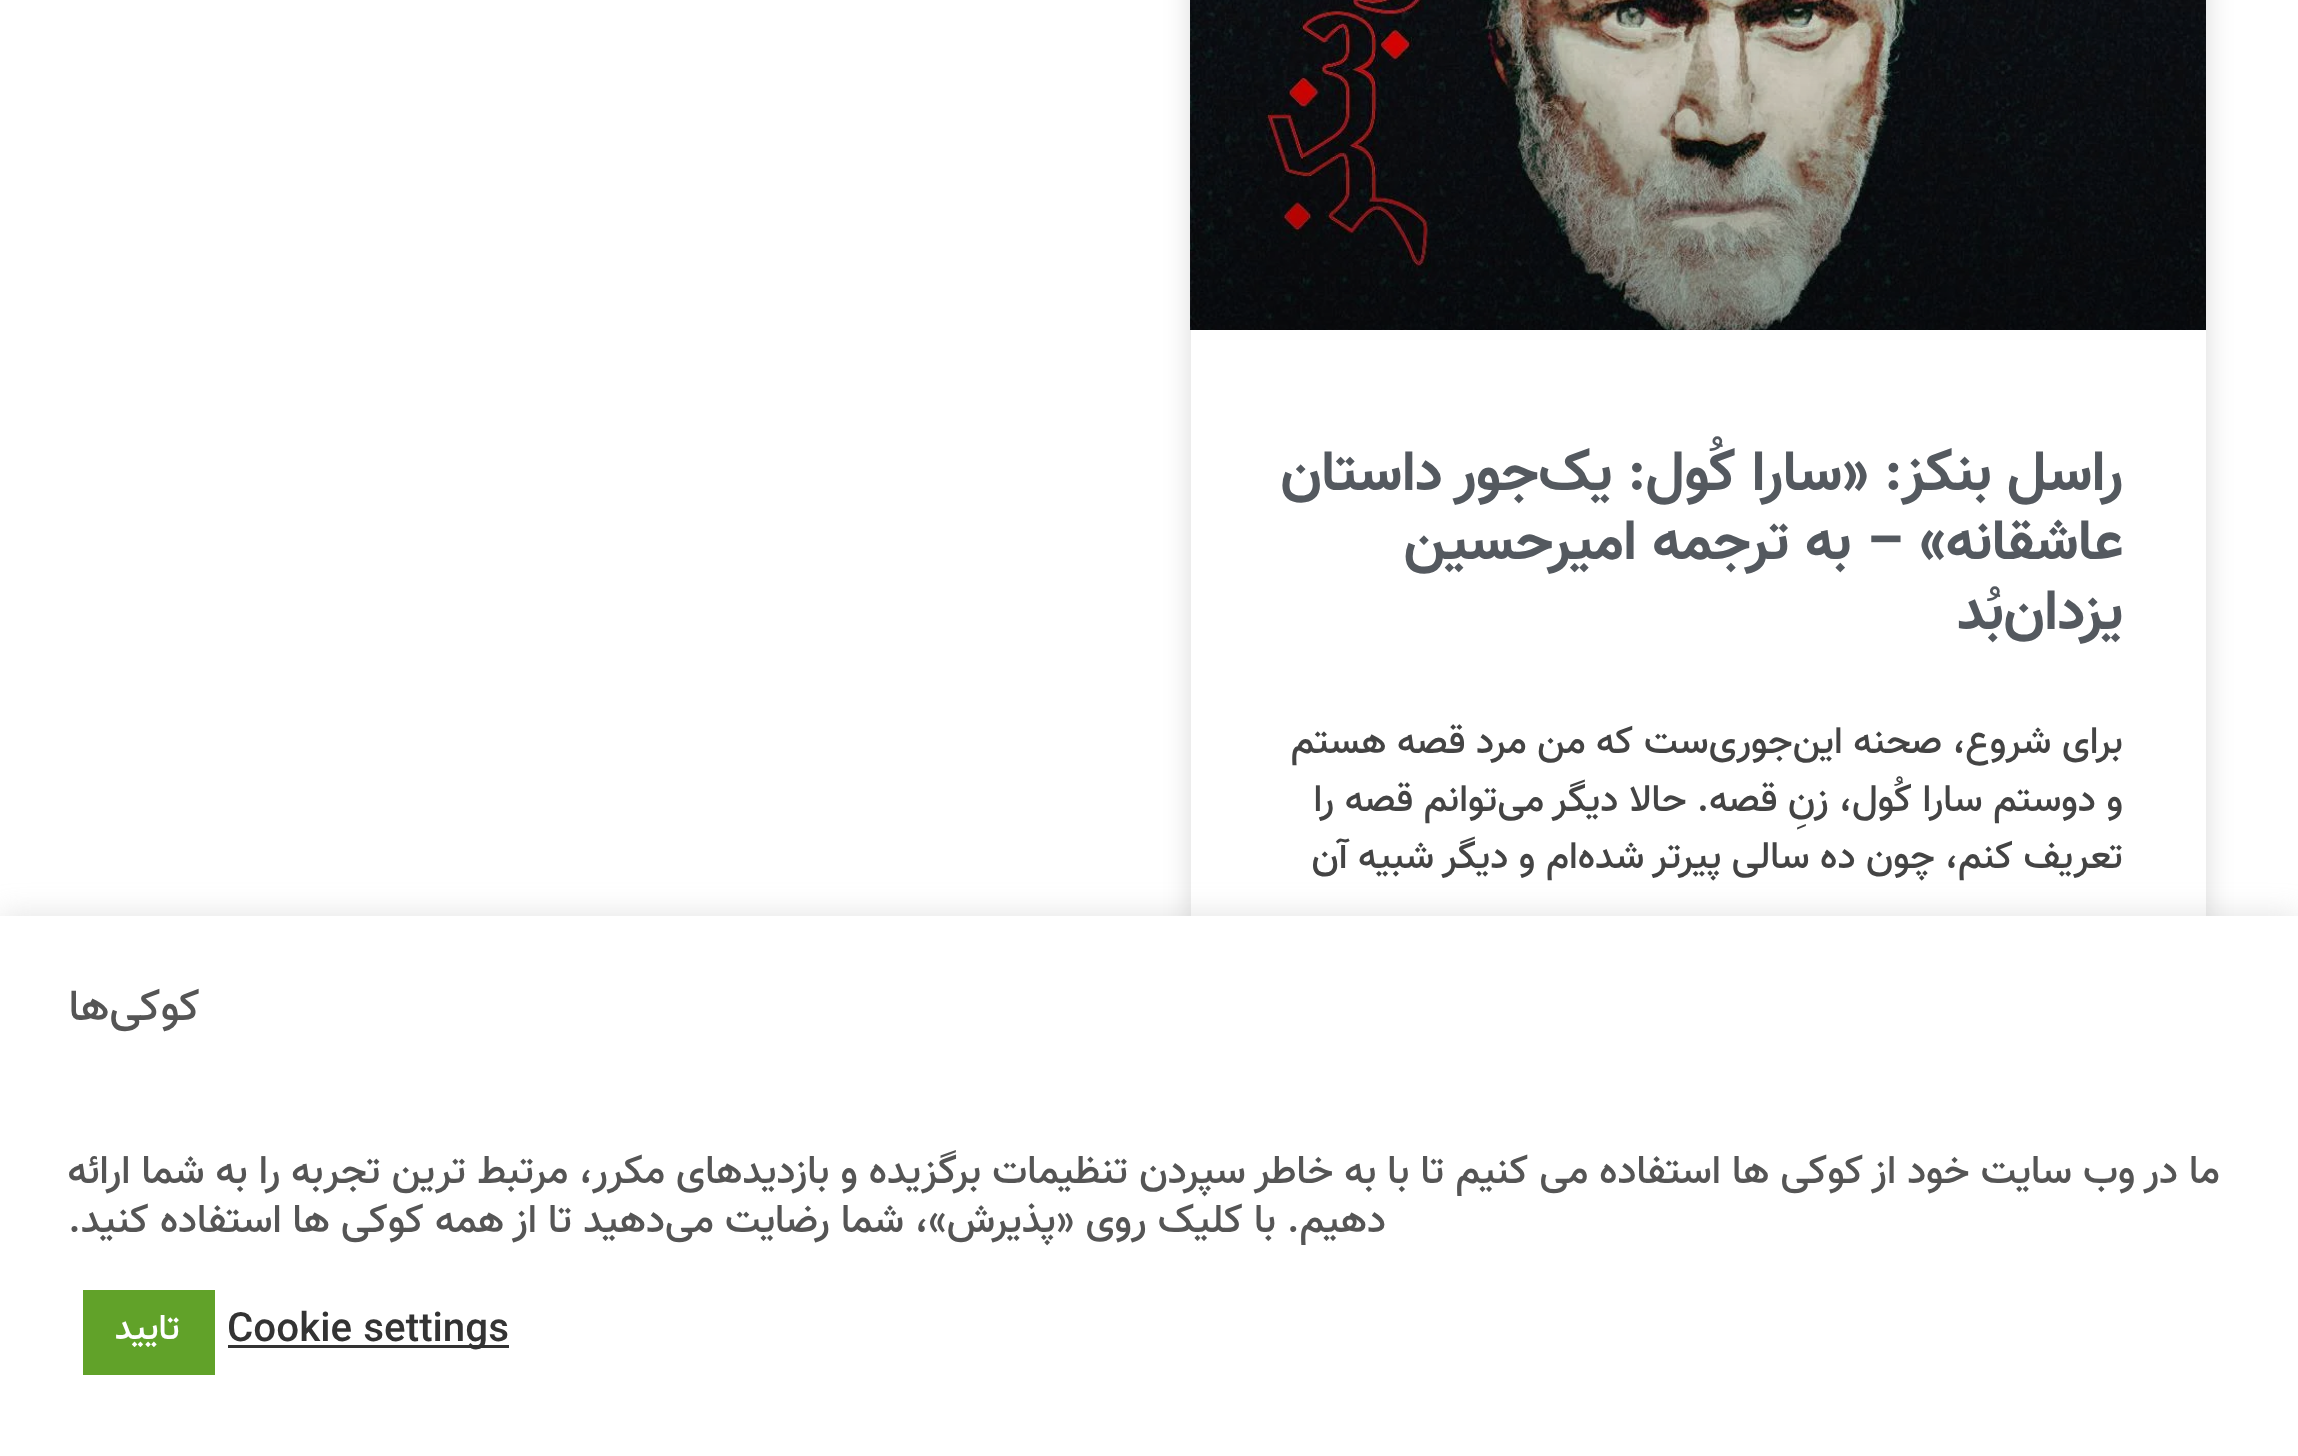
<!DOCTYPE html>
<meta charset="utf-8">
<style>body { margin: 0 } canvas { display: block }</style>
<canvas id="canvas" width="2298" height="1456"></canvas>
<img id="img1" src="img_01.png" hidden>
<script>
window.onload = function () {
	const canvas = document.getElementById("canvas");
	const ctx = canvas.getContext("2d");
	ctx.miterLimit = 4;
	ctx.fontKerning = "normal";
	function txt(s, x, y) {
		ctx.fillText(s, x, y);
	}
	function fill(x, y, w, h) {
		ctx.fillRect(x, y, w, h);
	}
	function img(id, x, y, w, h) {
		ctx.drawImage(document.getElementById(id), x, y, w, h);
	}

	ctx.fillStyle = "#FFFFFF";
	fill(0, 0, 2298, 1456);
	ctx.fillStyle = "rgba(0, 0, 0, 0.15)";
	ctx.filter = "blur(14px)";
	ctx.beginPath();
	ctx.roundRect(1191, -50, 1015, 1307, 8);
	ctx.fill();
	ctx.filter = "none";
	ctx.fillStyle = "#FFFFFF";
	fill(1191, 330, 1015, 586);
	img("img1", 1190, 0, 1016, 330);
	ctx.fillStyle = "rgba(172, 171, 171, 0.3)";
	ctx.filter = "blur(14px)";
	ctx.beginPath();
	ctx.rect(0, 913, 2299, 542);
	ctx.fill();
	ctx.filter = "none";
	ctx.fillStyle = "#FFFFFF";
	fill(0, 916, 2298, 540);
	ctx.fillStyle = "#333333";
	fill(228, 1345, 281, 3);
	ctx.fillStyle = "#61A229";
	fill(83, 1290, 132, 85);
	ctx.direction = "rtl";
	ctx.font = "bold 57.75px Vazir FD";
	ctx.fillStyle = "#54595F";
	txt("راسل بنکز: «سارا کُول: یک‌جور داستان", 2123, 490);
	txt("عاشقانه» – به ترجمه امیرحسین", 2123, 559);
	txt("یزدان‌بُد", 2123, 629);
	ctx.font = "500 38.5px Vazir FD";
	ctx.fillStyle = "#444444";
	txt("برای شروع، صحنه این‌جوری‌ست که من مرد قصه هستم", 2123, 753);
	txt("و دوستم سارا کُول، زنِ قصه. حالا دیگر می‌توانم قصه را", 2123, 811);
	txt("تعریف کنم، چون ده سالی پیرتر شده‌ام و دیگر شبیه آن", 2123, 868);
	ctx.font = "500 44px Vazir FD";
	ctx.fillStyle = "#555555";
	txt("کوکی‌ها", 200, 1020);
	ctx.font = "500 40.33px Vazir FD";
	txt("ما در وب سایت خود از کوکی ها استفاده می کنیم تا با به خاطر سپردن تنظیمات برگزیده و بازدیدهای مکرر، مرتبط ترین تجربه را به شما ارائه", 2220, 1183);
	txt("دهیم. با کلیک روی «پذیرش»، شما رضایت می‌دهید تا از همه کوکی ها استفاده کنید.", 1386, 1232);
	ctx.direction = "ltr";
	ctx.fillStyle = "#333333";
	txt("Cookie settings", 227, 1341);
	ctx.direction = "rtl";
	ctx.font = "500 36px Vazir FD";
	ctx.fillStyle = "#FFFFFF";
	txt("تایید", 180, 1339);
};
</script>
